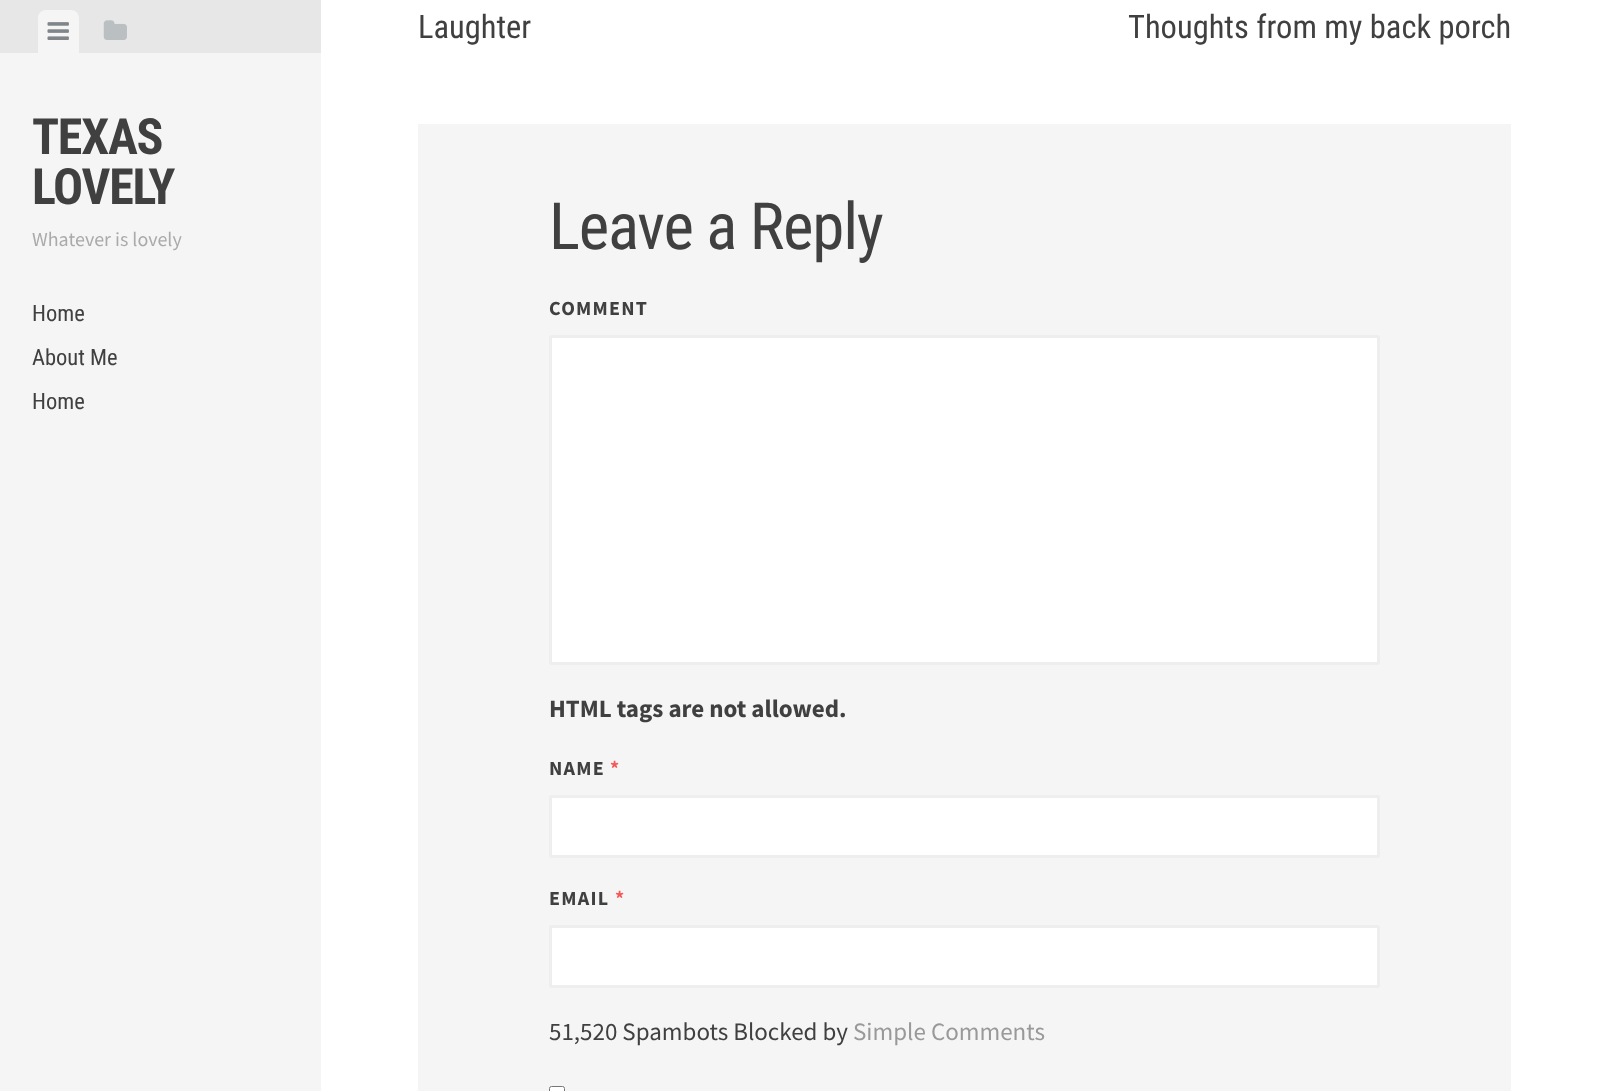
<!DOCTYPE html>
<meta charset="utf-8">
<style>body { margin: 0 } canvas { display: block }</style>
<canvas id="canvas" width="1607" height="1091"></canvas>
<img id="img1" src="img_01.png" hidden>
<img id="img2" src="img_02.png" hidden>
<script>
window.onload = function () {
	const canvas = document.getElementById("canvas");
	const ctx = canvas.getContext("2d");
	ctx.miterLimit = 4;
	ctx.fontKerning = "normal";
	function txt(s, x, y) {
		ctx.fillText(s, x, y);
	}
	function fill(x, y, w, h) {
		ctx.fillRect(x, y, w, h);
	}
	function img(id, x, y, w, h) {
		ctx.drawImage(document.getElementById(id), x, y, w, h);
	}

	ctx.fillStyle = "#FFFFFF";
	fill(0, 0, 1607, 1091);
	ctx.fillStyle = "#F5F5F5";
	fill(0, 53, 321, 1038);
	ctx.fillStyle = "#E7E7E7";
	fill(0, 0, 321, 53);
	ctx.fillStyle = "#F5F5F5";
	ctx.beginPath();
	ctx.roundRect(38, 10, 41, 43, [8, 8, 0, 0]);
	ctx.fill();
	img("img1", 47, 22, 22, 18);
	img("img2", 103, 20, 24, 20);
	fill(418, 124, 1093, 967);
	ctx.fillStyle = "#FFFFFF";
	ctx.beginPath();
	ctx.roundRect(550.5, 336.5, 828, 327, 1);
	ctx.fill();
	ctx.strokeStyle = "#EEEEEE";
	ctx.lineWidth = 3;
	ctx.stroke();
	ctx.beginPath();
	ctx.roundRect(550.5, 796.5, 828, 60, 1);
	ctx.fill();
	ctx.stroke();
	ctx.beginPath();
	ctx.roundRect(550.5, 926.5, 828, 60, 1);
	ctx.fill();
	ctx.stroke();
	ctx.beginPath();
	ctx.roundRect(549.5, 1086.5, 15, 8, 2);
	ctx.fill();
	ctx.strokeStyle = "#767676";
	ctx.lineWidth = 1;
	ctx.stroke();
	ctx.letterSpacing = "-1.25px";
	ctx.font = "bold 50px Roboto Condensed";
	ctx.fillStyle = "#404040";
	txt("TEXAS", 32, 154);
	txt("LOVELY", 32, 204);
	ctx.letterSpacing = "0px";
	ctx.font = "20px Source Sans Pro";
	ctx.fillStyle = "#AAAAAA";
	txt("Whatever is lovely", 32, 246);
	ctx.font = "22.5px Roboto Condensed";
	ctx.fillStyle = "#404040";
	txt("Home", 32, 321);
	txt("About Me", 32, 365);
	txt("Home", 32, 409);
	ctx.font = "32.5px Roboto Condensed";
	txt("Laughter", 418, 38);
	txt("Thoughts from my back porch", 1128, 38);
	ctx.letterSpacing = "-1.25px";
	ctx.font = "65px Roboto Condensed";
	txt("Leave a Reply", 549, 249);
	ctx.letterSpacing = "1.25px";
	ctx.font = "bold 20px Source Sans Pro";
	txt("COMMENT", 549, 315);
	ctx.letterSpacing = "0px";
	ctx.font = "bold 25px Source Sans Pro";
	txt("HTML tags are not allowed.", 549, 717);
	ctx.letterSpacing = "1.25px";
	ctx.font = "bold 20px Source Sans Pro";
	txt("NAME", 549, 775);
	ctx.fillStyle = "#F35959";
	txt("*", 610, 775);
	ctx.fillStyle = "#404040";
	txt("EMAIL", 549, 905);
	ctx.fillStyle = "#F35959";
	txt("*", 615, 905);
	ctx.letterSpacing = "0px";
	ctx.font = "25px Source Sans Pro";
	ctx.fillStyle = "#404040";
	txt("51,520 Spambots Blocked by", 549, 1040);
	ctx.fillStyle = "#999999";
	txt("Simple Comments", 853, 1040);
};
</script>
